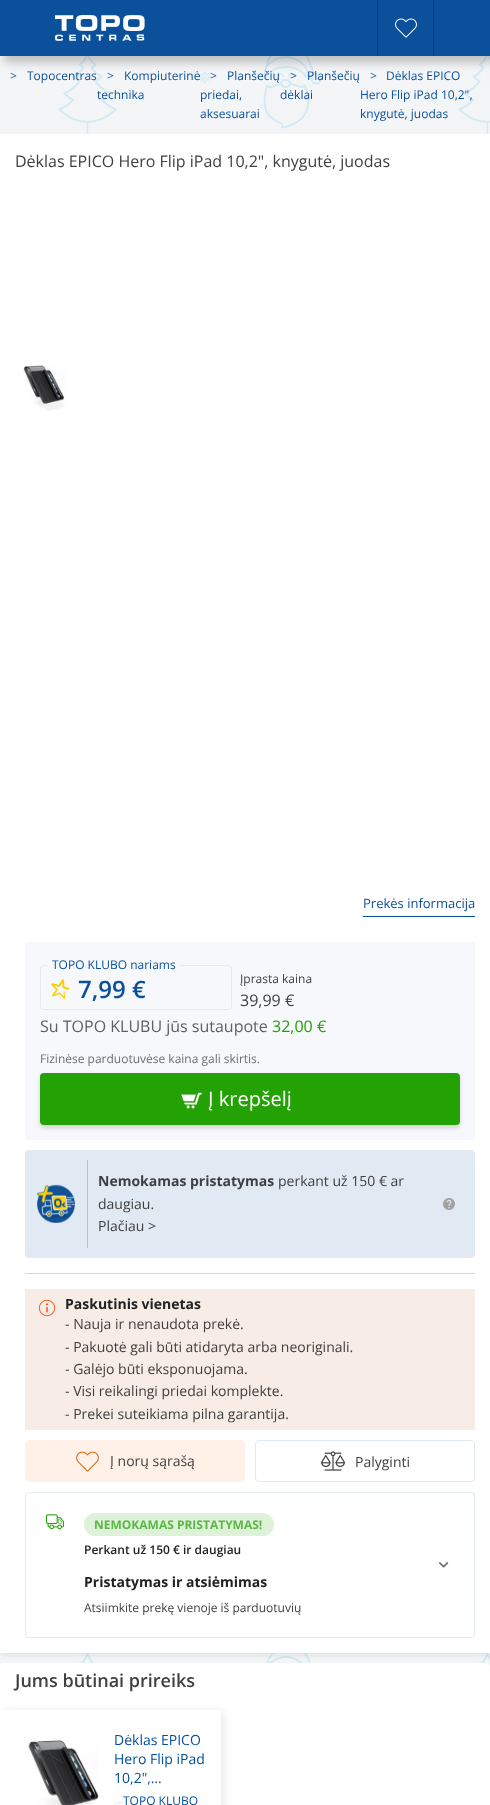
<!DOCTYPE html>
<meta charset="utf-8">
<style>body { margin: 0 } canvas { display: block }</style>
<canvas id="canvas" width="490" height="1805"></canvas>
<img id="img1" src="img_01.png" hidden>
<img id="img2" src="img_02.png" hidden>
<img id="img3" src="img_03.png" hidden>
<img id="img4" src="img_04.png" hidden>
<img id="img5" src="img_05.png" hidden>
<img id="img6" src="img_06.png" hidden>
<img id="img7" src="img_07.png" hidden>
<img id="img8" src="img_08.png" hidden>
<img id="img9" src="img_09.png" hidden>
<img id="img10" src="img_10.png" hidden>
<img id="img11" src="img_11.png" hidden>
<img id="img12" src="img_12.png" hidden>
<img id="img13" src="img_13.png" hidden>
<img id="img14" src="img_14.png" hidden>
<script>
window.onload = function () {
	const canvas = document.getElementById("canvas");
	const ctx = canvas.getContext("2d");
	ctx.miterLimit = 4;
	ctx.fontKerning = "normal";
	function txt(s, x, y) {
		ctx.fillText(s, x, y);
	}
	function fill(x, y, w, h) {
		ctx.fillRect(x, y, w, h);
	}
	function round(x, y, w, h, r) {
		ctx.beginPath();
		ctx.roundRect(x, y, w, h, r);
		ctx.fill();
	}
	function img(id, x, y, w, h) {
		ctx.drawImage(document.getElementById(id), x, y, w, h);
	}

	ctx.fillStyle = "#F3F5F7";
	fill(0, 0, 490, 1805);
	img("img1", 38, 56, 452, 1611);
	ctx.fillStyle = "rgba(0, 0, 0, 0.2)";
	ctx.filter = "blur(4px)";
	ctx.beginPath();
	ctx.rect(4, 7, 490, 56);
	ctx.fill();
	ctx.filter = "none";
	ctx.fillStyle = "#0A509B";
	fill(0, 0, 490, 56);
	img("img2", 55, 15, 90, 26);
	ctx.fillStyle = "#0B3F76";
	fill(377, 0, 1, 56);
	img("img3", 395, 18, 22, 20);
	fill(433, 0, 1, 56);
	ctx.fillStyle = "#FFFFFF";
	round(0, 1663, 490, 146, 4);
	ctx.fillStyle = "rgba(0, 0, 0, 0.07)";
	ctx.filter = "blur(2.5px)";
	ctx.beginPath();
	ctx.rect(1, 137, 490, 1519);
	ctx.fill();
	ctx.filter = "none";
	ctx.fillStyle = "#FFFFFF";
	fill(0, 134, 490, 1519);
	img("img4", 23, 365, 42, 46);
	ctx.fillStyle = "#0A509B";
	fill(363, 916, 112, 1);
	ctx.fillStyle = "#F6F8FB";
	ctx.beginPath();
	ctx.roundRect(25, 942, 450, 198, [0, 0, 4, 4]);
	ctx.fill();
	ctx.beginPath();
	ctx.roundRect(40.5, 965.5, 191, 44, 3.5);
	ctx.strokeStyle = "#E1EAF3";
	ctx.stroke();
	fill(48, 965, 132, 1);
	img("img5", 51, 979, 19, 20);
	ctx.fillStyle = "rgba(62, 62, 62, 0.2)";
	ctx.filter = "blur(2px)";
	ctx.beginPath();
	ctx.roundRect(40, 1076, 420, 52, 4);
	ctx.fill();
	ctx.filter = "none";
	ctx.fillStyle = "#24A105";
	round(40, 1073, 420, 52, 4);
	img("img6", 181, 1092, 21, 17);
	ctx.fillStyle = "#E1EAF3";
	round(25, 1150, 450, 108, 4);
	img("img7", 37, 1184, 38, 39);
	ctx.fillStyle = "#A3C4DB";
	fill(87, 1160, 1, 88);
	img("img8", 443, 1198, 12, 12);
	ctx.fillStyle = "#D9D7C1";
	fill(25, 1273, 450, 1);
	ctx.fillStyle = "#F8ECE6";
	fill(25, 1289, 450, 141);
	img("img9", 38, 1299, 18, 18);
	ctx.fillStyle = "#FFF0E8";
	round(25, 1440, 220, 42, 5);
	img("img10", 76, 1451, 23, 21);
	ctx.beginPath();
	ctx.roundRect(255.5, 1440.5, 219, 41, 3.5);
	ctx.stroke();
	img("img11", 321, 1451, 24, 20);
	ctx.beginPath();
	ctx.roundRect(25.5, 1492.5, 449, 145, 3.5);
	ctx.stroke();
	img("img12", 46, 1514, 18, 16);
	ctx.fillStyle = "#DEF1D9";
	round(84, 1513, 190, 23, 11.5);
	img("img13", 439, 1562, 10, 6);
	ctx.fillStyle = "rgba(0, 0, 0, 0.1)";
	ctx.filter = "blur(5px)";
	ctx.beginPath();
	ctx.roundRect(2, 1712, 221, 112, 4);
	ctx.fill();
	ctx.filter = "none";
	ctx.fillStyle = "#FFFFFF";
	round(0, 1710, 221, 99, 4);
	img("img14", 28, 1740, 71, 65);
	ctx.beginPath();
	ctx.roundRect(114.5, 1802.5, 91, 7, 3.5);
	ctx.stroke();
	fill(123, 1802, 82, 3);
	ctx.font = "12px Open Sans";
	ctx.fillStyle = "#0A509B";
	txt(">", 10, 80);
	txt("Topocentras", 27, 80);
	txt(">", 107, 80);
	txt("Kompiuterinė", 124, 80);
	txt("technika", 97, 99);
	txt(">", 210, 80);
	txt("Planšečių", 227, 80);
	txt("priedai,", 200, 99);
	txt("aksesuarai", 200, 118);
	txt(">", 290, 80);
	txt("Planšečių", 307, 80);
	txt("dėklai", 280, 99);
	txt(">", 370, 80);
	txt("Dėklas EPICO", 386, 80);
	txt("Hero Flip iPad 10,2\",", 360, 99);
	txt("knygutė, juodas", 360, 118);
	ctx.font = "16px Open Sans";
	ctx.fillStyle = "#404040";
	txt("Dėklas EPICO Hero Flip iPad 10,2\", knygutė, juodas", 15, 167);
	ctx.font = "13px Open Sans";
	ctx.fillStyle = "#0A509B";
	txt("Prekės informacija", 363, 908);
	ctx.font = "12px Open Sans";
	txt("TOPO KLUBO nariams", 52, 969);
	ctx.font = "600 24px Open Sans";
	txt("7,99 €", 78, 998);
	ctx.font = "12px Open Sans";
	ctx.fillStyle = "#404040";
	txt("Įprasta kaina", 240, 983);
	ctx.font = "16px Open Sans";
	txt("39,99 €", 240, 1006);
	ctx.fillStyle = "#606060";
	txt("Su TOPO KLUBU jūs sutaupote", 40, 1032);
	ctx.fillStyle = "#24A105";
	txt("32,00 €", 272, 1032);
	ctx.font = "12px Open Sans";
	ctx.fillStyle = "#6C6F70";
	txt("Fizinėse parduotuvėse kaina gali skirtis.", 40, 1063);
	ctx.font = "20px Open Sans";
	ctx.fillStyle = "#FFFFFF";
	txt("Į krepšelį", 208, 1106);
	ctx.font = "bold 14px Open Sans";
	ctx.fillStyle = "#404040";
	txt("Nemokamas pristatymas", 98, 1186);
	ctx.font = "14px Open Sans";
	txt("perkant už 150 € ar", 278, 1186);
	txt("daugiau.", 98, 1209);
	txt("Plačiau >", 98, 1231);
	ctx.font = "bold 14px Open Sans";
	ctx.fillStyle = "#222222";
	txt("Paskutinis vienetas", 65, 1309);
	ctx.font = "14px Open Sans";
	ctx.fillStyle = "#404040";
	txt("- Nauja ir nenaudota prekė.", 65, 1329);
	txt("- Pakuotė gali būti atidaryta arba neoriginali.", 65, 1352);
	txt("- Galėjo būti eksponuojama.", 65, 1374);
	txt("- Visi reikalingi priedai komplekte.", 65, 1396);
	txt("- Prekei suteikiama pilna garantija.", 65, 1419);
	txt("Į norų sąrašą", 110, 1466);
	txt("Palyginti", 355, 1467);
	ctx.font = "bold 12px Open Sans";
	ctx.fillStyle = "#5BB844";
	txt("NEMOKAMAS PRISTATYMAS!", 94, 1529);
	ctx.font = "600 12px Open Sans";
	ctx.fillStyle = "#222222";
	txt("Perkant už 150 € ir daugiau", 84, 1554);
	ctx.font = "bold 14px Open Sans";
	txt("Pristatymas ir atsiėmimas", 84, 1587);
	ctx.font = "12px Open Sans";
	ctx.fillStyle = "#404040";
	txt("Atsiimkite prekę vienoje iš parduotuvių", 84, 1612);
	ctx.font = "600 18px Open Sans";
	txt("Jums būtinai prireiks", 15, 1687);
	ctx.font = "14px Open Sans";
	ctx.fillStyle = "#004E9D";
	txt("Dėklas EPICO", 114, 1745);
	txt("Hero Flip iPad", 114, 1764);
	txt("10,2\",…", 114, 1783);
	ctx.font = "12px Open Sans";
	txt("TOPO KLUBO", 123, 1805);
};
</script>
